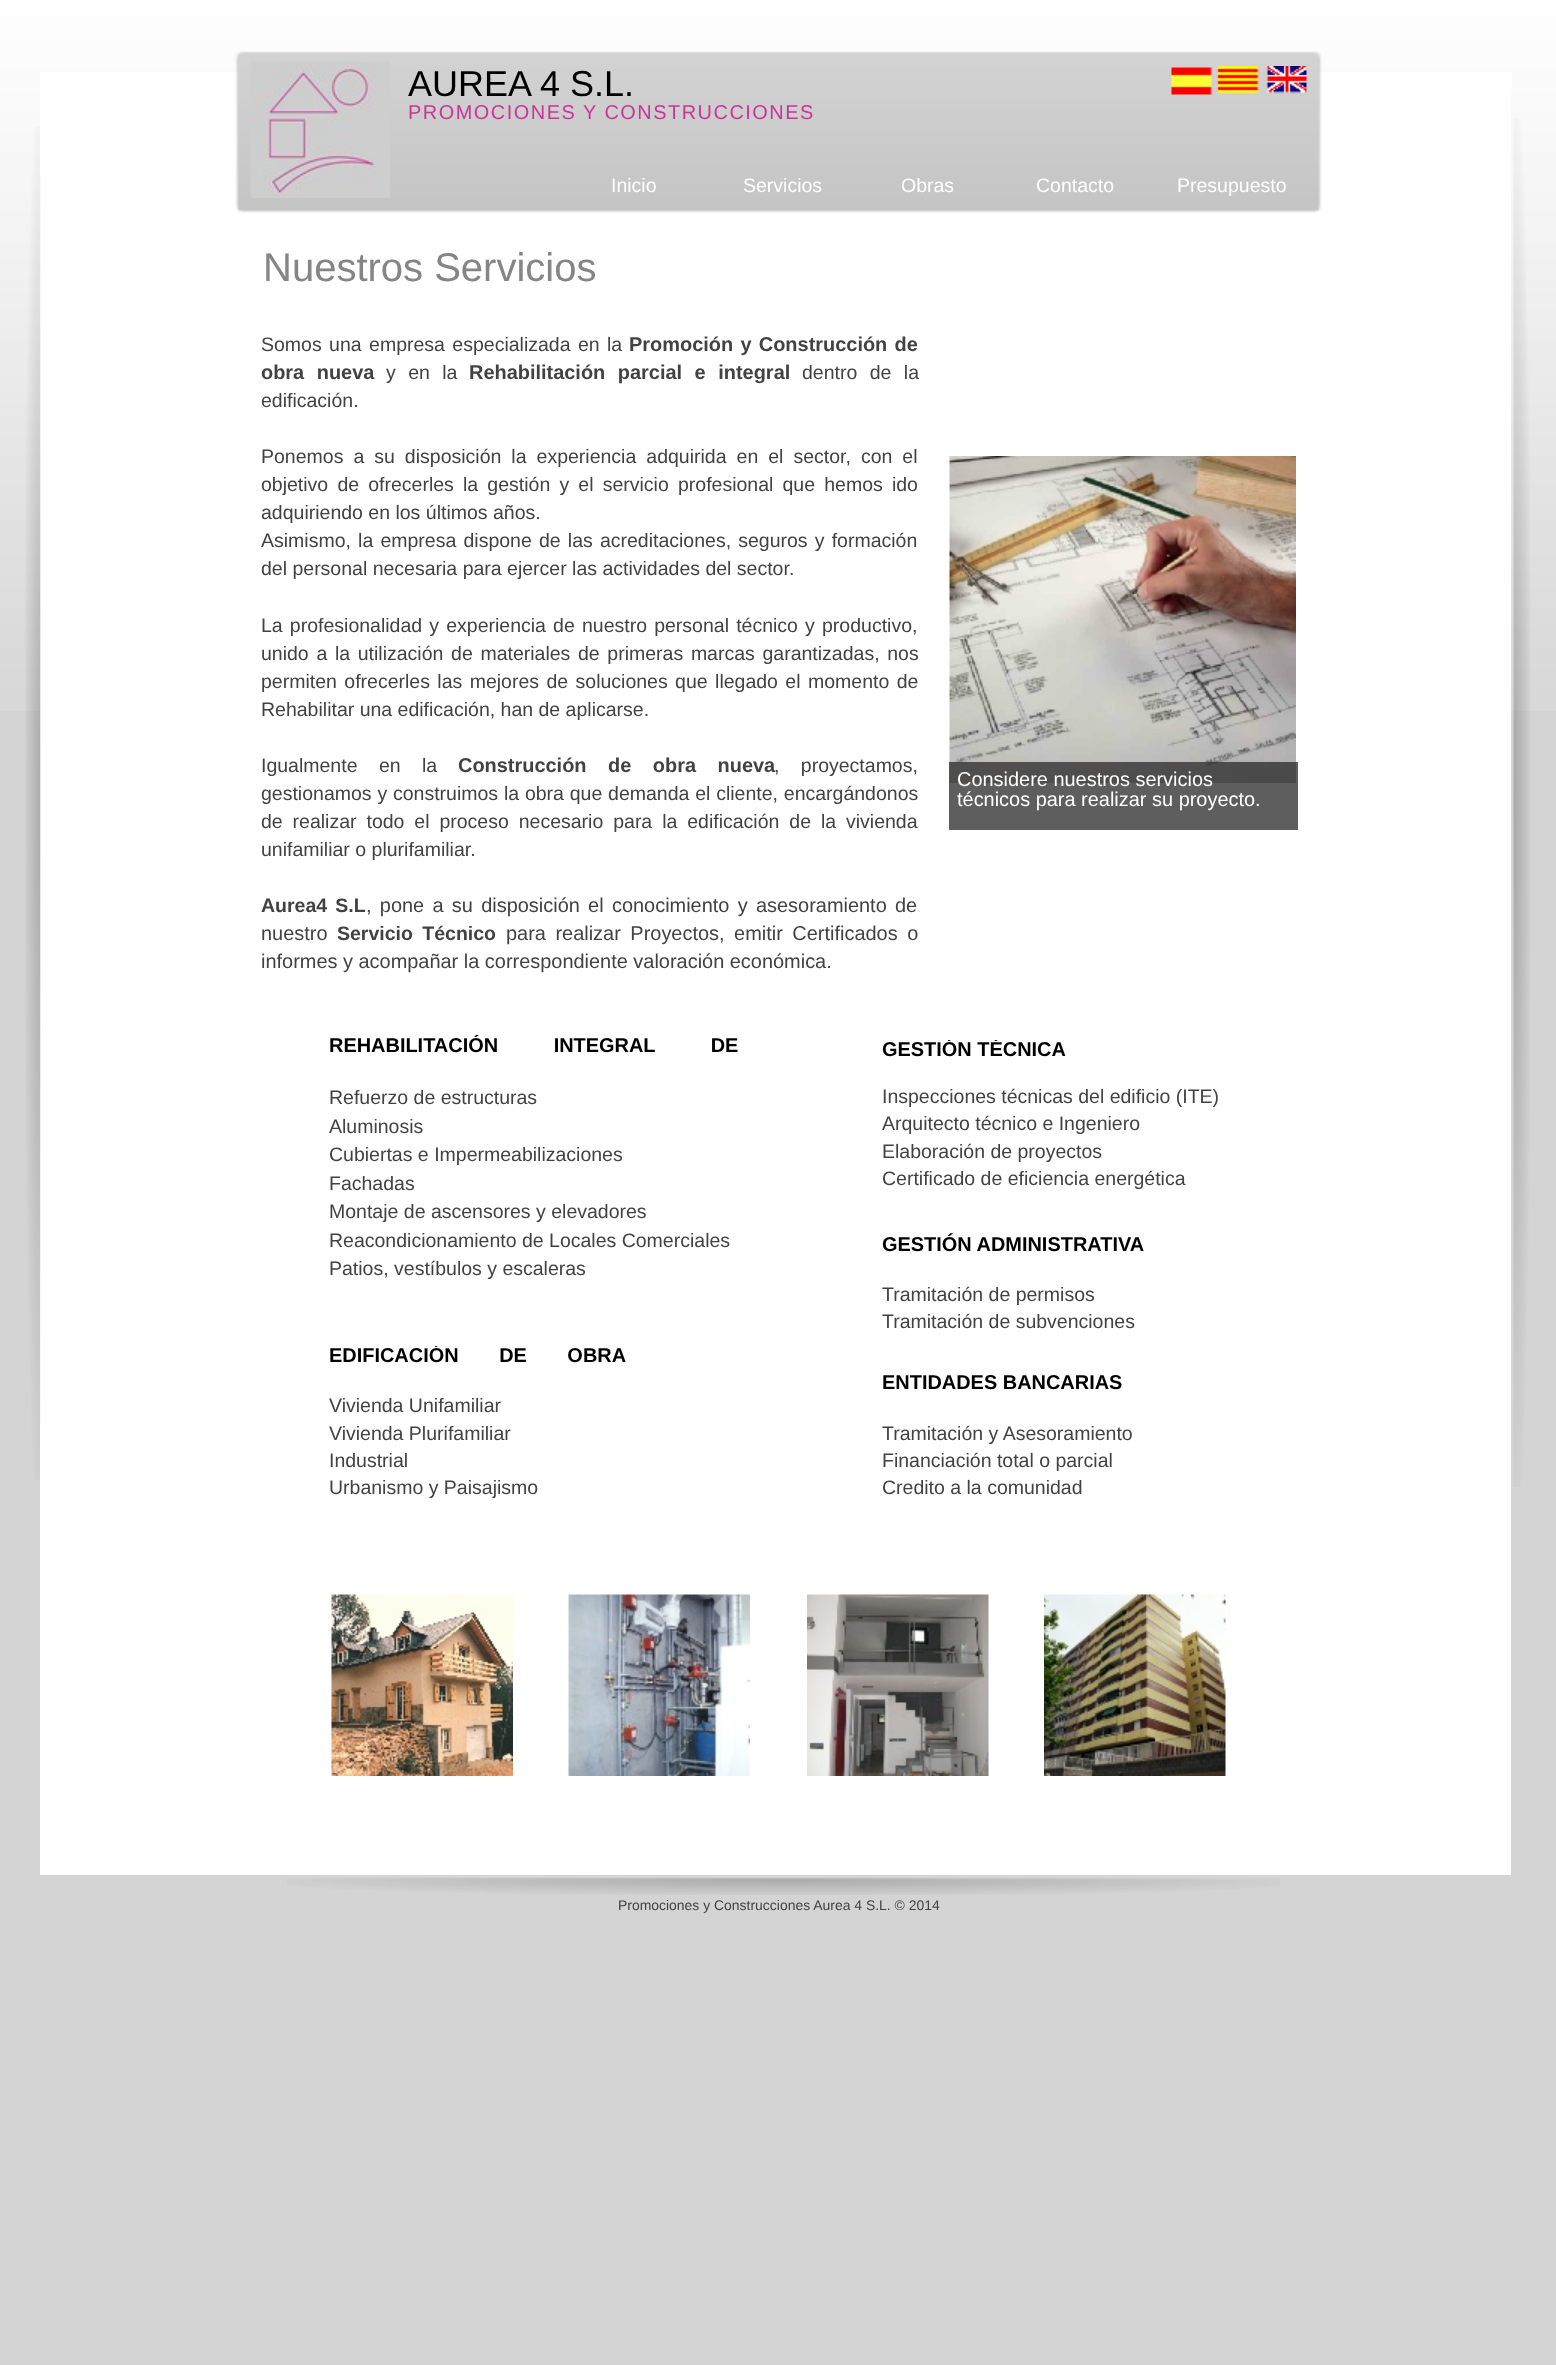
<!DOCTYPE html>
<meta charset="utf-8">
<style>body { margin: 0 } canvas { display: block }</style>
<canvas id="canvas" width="1556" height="2365"></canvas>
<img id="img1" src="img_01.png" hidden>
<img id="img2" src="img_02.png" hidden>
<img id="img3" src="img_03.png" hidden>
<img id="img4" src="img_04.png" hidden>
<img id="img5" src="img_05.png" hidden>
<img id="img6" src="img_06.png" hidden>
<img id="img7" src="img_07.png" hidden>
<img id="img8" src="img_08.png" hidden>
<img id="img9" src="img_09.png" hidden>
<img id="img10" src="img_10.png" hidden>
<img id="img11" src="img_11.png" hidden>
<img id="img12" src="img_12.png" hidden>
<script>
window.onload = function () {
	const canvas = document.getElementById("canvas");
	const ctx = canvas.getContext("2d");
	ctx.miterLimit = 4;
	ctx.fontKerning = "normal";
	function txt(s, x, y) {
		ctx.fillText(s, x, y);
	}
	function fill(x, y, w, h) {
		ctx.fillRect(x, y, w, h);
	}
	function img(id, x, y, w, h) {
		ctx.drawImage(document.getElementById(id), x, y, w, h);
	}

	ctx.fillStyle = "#D5D4D4";
	fill(0, 0, 1556, 2365);
	img("img1", 0, 0, 1556, 711);
	ctx.fillStyle = "#FFFFFF";
	fill(40, 72, 1471, 678);
	img("img2", 235, 51, 1087, 162);
	img("img3", 250, 61, 140, 137);
	img("img4", 1171, 66, 136, 29);
	fill(40, 750, 1471, 1125);
	img("img5", 25, 127, 16, 1353);
	img("img6", 1513, 118, 17, 1369);
	img("img7", 949, 456, 347, 327);
	ctx.fillStyle = "rgba(45, 44, 44, 0.76)";
	fill(949, 762, 349, 68);
	img("img8", 331, 1594, 182, 182);
	img("img9", 568, 1594, 182, 182);
	img("img10", 807, 1594, 182, 182);
	img("img11", 1044, 1594, 182, 182);
	img("img12", 287, 1878, 993, 17);
	ctx.font = "36px Liberation Sans";
	ctx.fillStyle = "#000000";
	txt("AUREA 4 S.L.", 408, 96);
	ctx.letterSpacing = "1.5px";
	ctx.font = "19.95px Liberation Sans";
	ctx.fillStyle = "#CC3399";
	txt("PROMOCIONES Y CONSTRUCCIONES", 408, 119);
	ctx.letterSpacing = "0px";
	ctx.font = "19.5px Liberation Sans";
	ctx.fillStyle = "#FFFFFF";
	txt("Inicio", 611, 192);
	txt("Servicios", 743, 192);
	txt("Obras", 901, 192);
	txt("Contacto", 1036, 192);
	txt("Presupuesto", 1177, 192);
	ctx.font = "40px Liberation Sans";
	ctx.fillStyle = "#858585";
	txt("Nuestros Servicios", 263, 281);
	ctx.wordSpacing = "2px";
	ctx.font = "19.5px Liberation Sans";
	ctx.fillStyle = "#424242";
	txt("Somos una empresa especializada en la", 261, 351);
	ctx.wordSpacing = "1.75px";
	ctx.font = "bold 19.95px Liberation Sans";
	txt("Promoción y Construcción de", 629, 351);
	ctx.wordSpacing = "7px";
	txt("obra nueva", 261, 379);
	ctx.font = "19.5px Liberation Sans";
	txt("y en la", 386, 379);
	ctx.font = "bold 19.95px Liberation Sans";
	txt("Rehabilitación parcial e integral", 469, 379);
	ctx.font = "19.5px Liberation Sans";
	txt("dentro de la", 802, 379);
	ctx.wordSpacing = "0px";
	txt("edificación.", 261, 407);
	ctx.wordSpacing = "4.6px";
	txt("Ponemos a su disposición la experiencia adquirida en el sector, con el", 261, 463);
	ctx.wordSpacing = "3.75px";
	txt("objetivo de ofrecerles la gestión y el servicio profesional que hemos ido", 261, 491);
	ctx.wordSpacing = "0px";
	txt("adquiriendo en los últimos años.", 261, 519);
	ctx.wordSpacing = "1.75px";
	txt("Asimismo, la empresa dispone de las acreditaciones, seguros y formación", 261, 547);
	ctx.wordSpacing = "0px";
	txt("del personal necesaria para ejercer las actividades del sector.", 261, 575);
	ctx.wordSpacing = "1.75px";
	txt("La profesionalidad y experiencia de nuestro personal técnico y productivo,", 261, 632);
	ctx.wordSpacing = "2.25px";
	txt("unido a la utilización de materiales de primeras marcas garantizadas, nos", 261, 660);
	ctx.wordSpacing = "2px";
	txt("permiten ofrecerles las mejores de soluciones que llegado el momento de", 261, 688);
	ctx.wordSpacing = "0px";
	txt("Rehabilitar una edificación, han de aplicarse.", 261, 716);
	ctx.wordSpacing = "16px";
	txt("Igualmente en la", 261, 772);
	ctx.font = "bold 19.95px Liberation Sans";
	txt("Construcción de obra nueva", 458, 772);
	ctx.font = "19.5px Liberation Sans";
	txt(", proyectamos,", 774, 772);
	ctx.wordSpacing = "0.4px";
	txt("gestionamos y construimos la obra que demanda el cliente, encargándonos", 261, 800);
	ctx.wordSpacing = "4.5px";
	txt("de realizar todo el proceso necesario para la edificación de la vivienda", 261, 828);
	ctx.wordSpacing = "0px";
	txt("unifamiliar o plurifamiliar.", 261, 856);
	ctx.wordSpacing = "2.75px";
	ctx.font = "bold 19.5px Liberation Sans";
	txt("Aurea4 S.L", 261, 912);
	ctx.font = "19.95px Liberation Sans";
	txt(", pone a su disposición el conocimiento y asesoramiento de", 366, 912);
	ctx.wordSpacing = "0px";
	txt("nuestro", 261, 940);
	ctx.wordSpacing = "4px";
	ctx.font = "bold 19.5px Liberation Sans";
	txt("Servicio Técnico", 337, 940);
	ctx.font = "19.95px Liberation Sans";
	txt("para realizar Proyectos, emitir Certificados o", 506, 940);
	ctx.wordSpacing = "0px";
	txt("informes y acompañar la correspondiente valoración económica.", 261, 968);
	ctx.fillStyle = "#FFFFFF";
	txt("Considere nuestros servicios", 957, 786);
	txt("técnicos para realizar su proyecto.", 957, 806);
	ctx.save();
	ctx.beginPath();
	ctx.rect(329, 1035, 409, 32);
	ctx.clip();
	ctx.wordSpacing = "50px";
	ctx.font = "bold 19.95px Liberation Sans";
	ctx.fillStyle = "#000000";
	txt("REHABILITACIÓN INTEGRAL DE", 329, 1052);
	ctx.restore();
	ctx.save();
	ctx.beginPath();
	ctx.rect(882, 1040, 342, 27);
	ctx.clip();
	ctx.font = "bold 19.95px Liberation Sans";
	ctx.fillStyle = "#000000";
	txt("GESTIÓN TÉCNICA", 882, 1056);
	ctx.restore();
	ctx.font = "19.5px Liberation Sans";
	ctx.fillStyle = "#424242";
	txt("Refuerzo de estructuras", 329, 1104);
	txt("Aluminosis", 329, 1133);
	txt("Cubiertas e Impermeabilizaciones", 329, 1161);
	txt("Fachadas", 329, 1190);
	txt("Montaje de ascensores y elevadores", 329, 1218);
	txt("Reacondicionamiento de Locales Comerciales", 329, 1247);
	txt("Patios, vestíbulos y escaleras", 329, 1275);
	txt("Inspecciones técnicas del edificio (ITE)", 882, 1103);
	txt("Arquitecto técnico e Ingeniero", 882, 1130);
	txt("Elaboración de proyectos", 882, 1158);
	txt("Certificado de eficiencia energética", 882, 1185);
	ctx.font = "bold 19.95px Liberation Sans";
	ctx.fillStyle = "#000000";
	txt("GESTIÓN ADMINISTRATIVA", 882, 1251);
	ctx.font = "19.5px Liberation Sans";
	ctx.fillStyle = "#424242";
	txt("Tramitación de permisos", 882, 1301);
	txt("Tramitación de subvenciones", 882, 1328);
	ctx.save();
	ctx.beginPath();
	ctx.rect(329, 1346, 297, 31);
	ctx.clip();
	ctx.wordSpacing = "35px";
	ctx.font = "bold 19.95px Liberation Sans";
	ctx.fillStyle = "#000000";
	txt("EDIFICACIÓN DE OBRA", 329, 1362);
	ctx.restore();
	ctx.font = "bold 19.95px Liberation Sans";
	ctx.fillStyle = "#000000";
	txt("ENTIDADES BANCARIAS", 882, 1389);
	ctx.font = "19.5px Liberation Sans";
	ctx.fillStyle = "#424242";
	txt("Vivienda Unifamiliar", 329, 1412);
	txt("Vivienda Plurifamiliar", 329, 1440);
	txt("Industrial", 329, 1467);
	txt("Urbanismo y Paisajismo", 329, 1494);
	txt("Tramitación y Asesoramiento", 882, 1440);
	txt("Financiación total o parcial", 882, 1467);
	txt("Credito a la comunidad", 882, 1494);
	ctx.font = "13.95px Liberation Sans";
	txt("Promociones y Construcciones Aurea 4 S.L. © 2014", 618, 1910);
};
</script>
